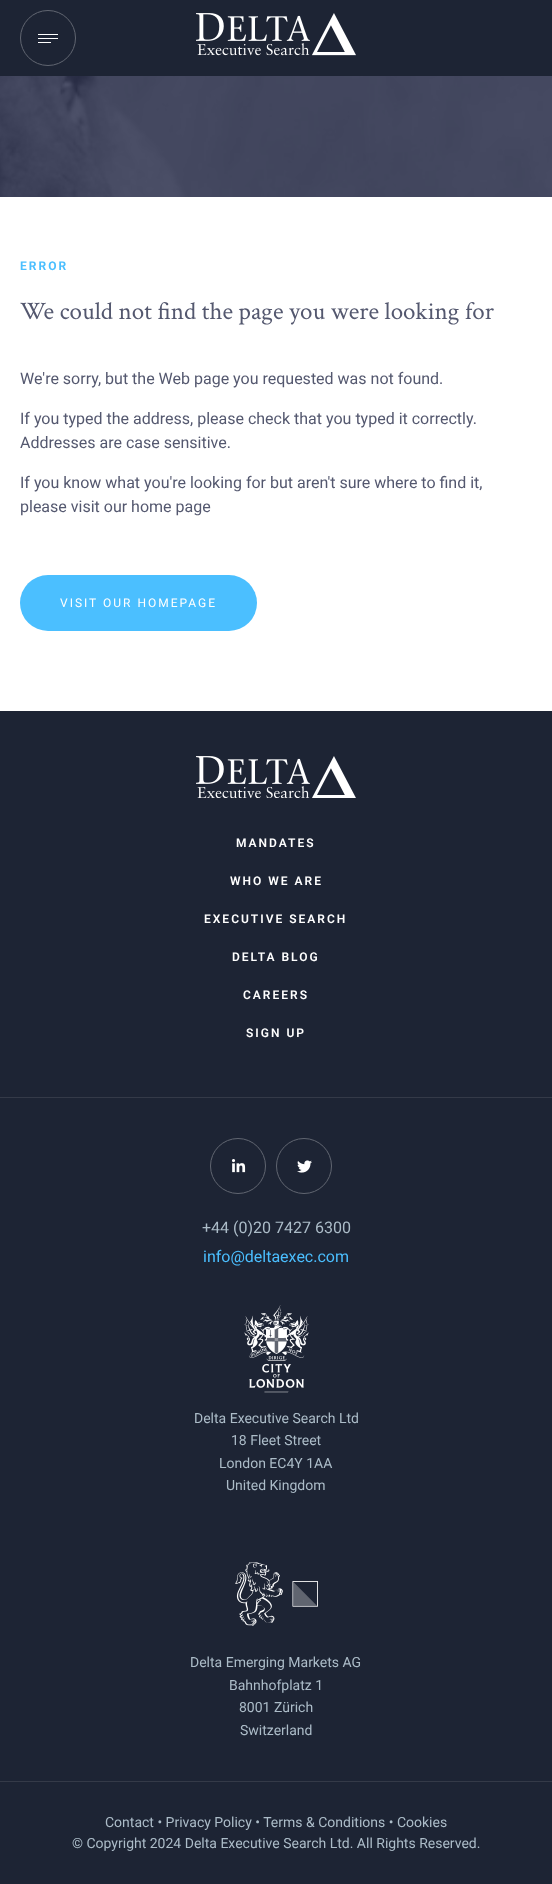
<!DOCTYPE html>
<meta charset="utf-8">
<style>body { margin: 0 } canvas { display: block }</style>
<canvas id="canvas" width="552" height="1884"></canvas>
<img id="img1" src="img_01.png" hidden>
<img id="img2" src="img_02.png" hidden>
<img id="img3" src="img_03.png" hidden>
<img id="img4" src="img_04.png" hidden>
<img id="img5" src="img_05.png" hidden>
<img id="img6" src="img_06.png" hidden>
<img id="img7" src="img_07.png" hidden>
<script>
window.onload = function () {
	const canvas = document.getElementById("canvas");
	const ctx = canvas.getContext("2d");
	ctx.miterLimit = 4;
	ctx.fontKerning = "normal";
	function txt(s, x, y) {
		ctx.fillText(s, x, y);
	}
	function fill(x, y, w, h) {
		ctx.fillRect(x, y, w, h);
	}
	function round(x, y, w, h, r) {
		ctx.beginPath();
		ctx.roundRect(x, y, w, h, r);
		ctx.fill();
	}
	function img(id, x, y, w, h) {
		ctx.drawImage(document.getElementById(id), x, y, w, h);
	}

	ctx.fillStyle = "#FFFFFF";
	fill(0, 0, 552, 1884);
	ctx.fillStyle = "#1D2434";
	fill(0, 0, 552, 76);
	ctx.beginPath();
	ctx.arc(48, 38, 27.5, 0, Math.PI * 2);
	ctx.strokeStyle = "#616671";
	ctx.stroke();
	ctx.fillStyle = "#FFFFFF";
	fill(38, 34, 20, 1);
	fill(38, 38, 20, 1);
	fill(38, 42, 13, 1);
	img("img1", 196, 13, 160, 43);
	ctx.fillStyle = "#2F3450";
	fill(0, 76, 552, 121);
	img("img2", 0, 76, 552, 121);
	ctx.fillStyle = "#4BBFFF";
	round(20, 575, 237, 56, 28);
	ctx.fillStyle = "#1D2434";
	fill(0, 711, 552, 1173);
	ctx.fillStyle = "#343A48";
	fill(0, 1097, 552, 1);
	img("img3", 196, 756, 160, 42);
	ctx.beginPath();
	ctx.arc(238, 1166, 27.5, 0, Math.PI * 2);
	ctx.stroke();
	img("img4", 232, 1159, 14, 14);
	ctx.beginPath();
	ctx.arc(304, 1166, 27.5, 0, Math.PI * 2);
	ctx.stroke();
	img("img5", 297, 1160, 15, 13);
	img("img6", 244, 1305, 65, 88);
	img("img7", 235, 1562, 83, 64);
	fill(0, 1781, 552, 1);
	ctx.letterSpacing = "2px";
	ctx.font = "bold 12px Roboto";
	ctx.fillStyle = "#4BBFFF";
	txt("ERROR", 20, 270);
	ctx.letterSpacing = "0px";
	ctx.font = "25px Crimson Text";
	ctx.fillStyle = "#54586F";
	txt("We could not find the page you were looking for", 20, 319);
	ctx.font = "16px Roboto";
	txt("We're sorry, but the Web page you requested was not found.", 20, 384);
	txt("If you typed the address, please check that you typed it correctly.", 20, 424);
	txt("Addresses are case sensitive.", 20, 448);
	txt("If you know what you're looking for but aren't sure where to find it,", 20, 488);
	txt("please visit our home page", 20, 512);
	ctx.letterSpacing = "2px";
	ctx.font = "12px Roboto";
	ctx.fillStyle = "#FFFFFF";
	txt("VISIT OUR HOMEPAGE", 60, 607);
	ctx.font = "600 12px Roboto";
	txt("MANDATES", 236, 847);
	txt("WHO WE ARE", 230, 885);
	txt("EXECUTIVE SEARCH", 204, 923);
	txt("DELTA BLOG", 232, 961);
	txt("CAREERS", 243, 999);
	txt("SIGN UP", 246, 1037);
	ctx.letterSpacing = "0px";
	ctx.font = "16px Roboto";
	ctx.fillStyle = "#ACBCC8";
	txt("+44 (0)20 7427 6300", 202, 1233);
	ctx.fillStyle = "#4BBFFF";
	txt("info@deltaexec.com", 203, 1262);
	ctx.font = "14px Roboto";
	ctx.fillStyle = "#ACBCC8";
	txt("Delta Executive Search Ltd", 194, 1423);
	txt("18 Fleet Street", 231, 1445);
	txt("London EC4Y 1AA", 219, 1468);
	txt("United Kingdom", 226, 1490);
	txt("Delta Emerging Markets AG", 190, 1667);
	txt("Bahnhofplatz 1", 229, 1690);
	txt("8001 Zürich", 239, 1712);
	txt("Switzerland", 240, 1735);
	txt("Contact • Privacy Policy • Terms & Conditions • Cookies", 105, 1827);
	txt("© Copyright 2024 Delta Executive Search Ltd. All Rights Reserved.", 72, 1848);
};
</script>
